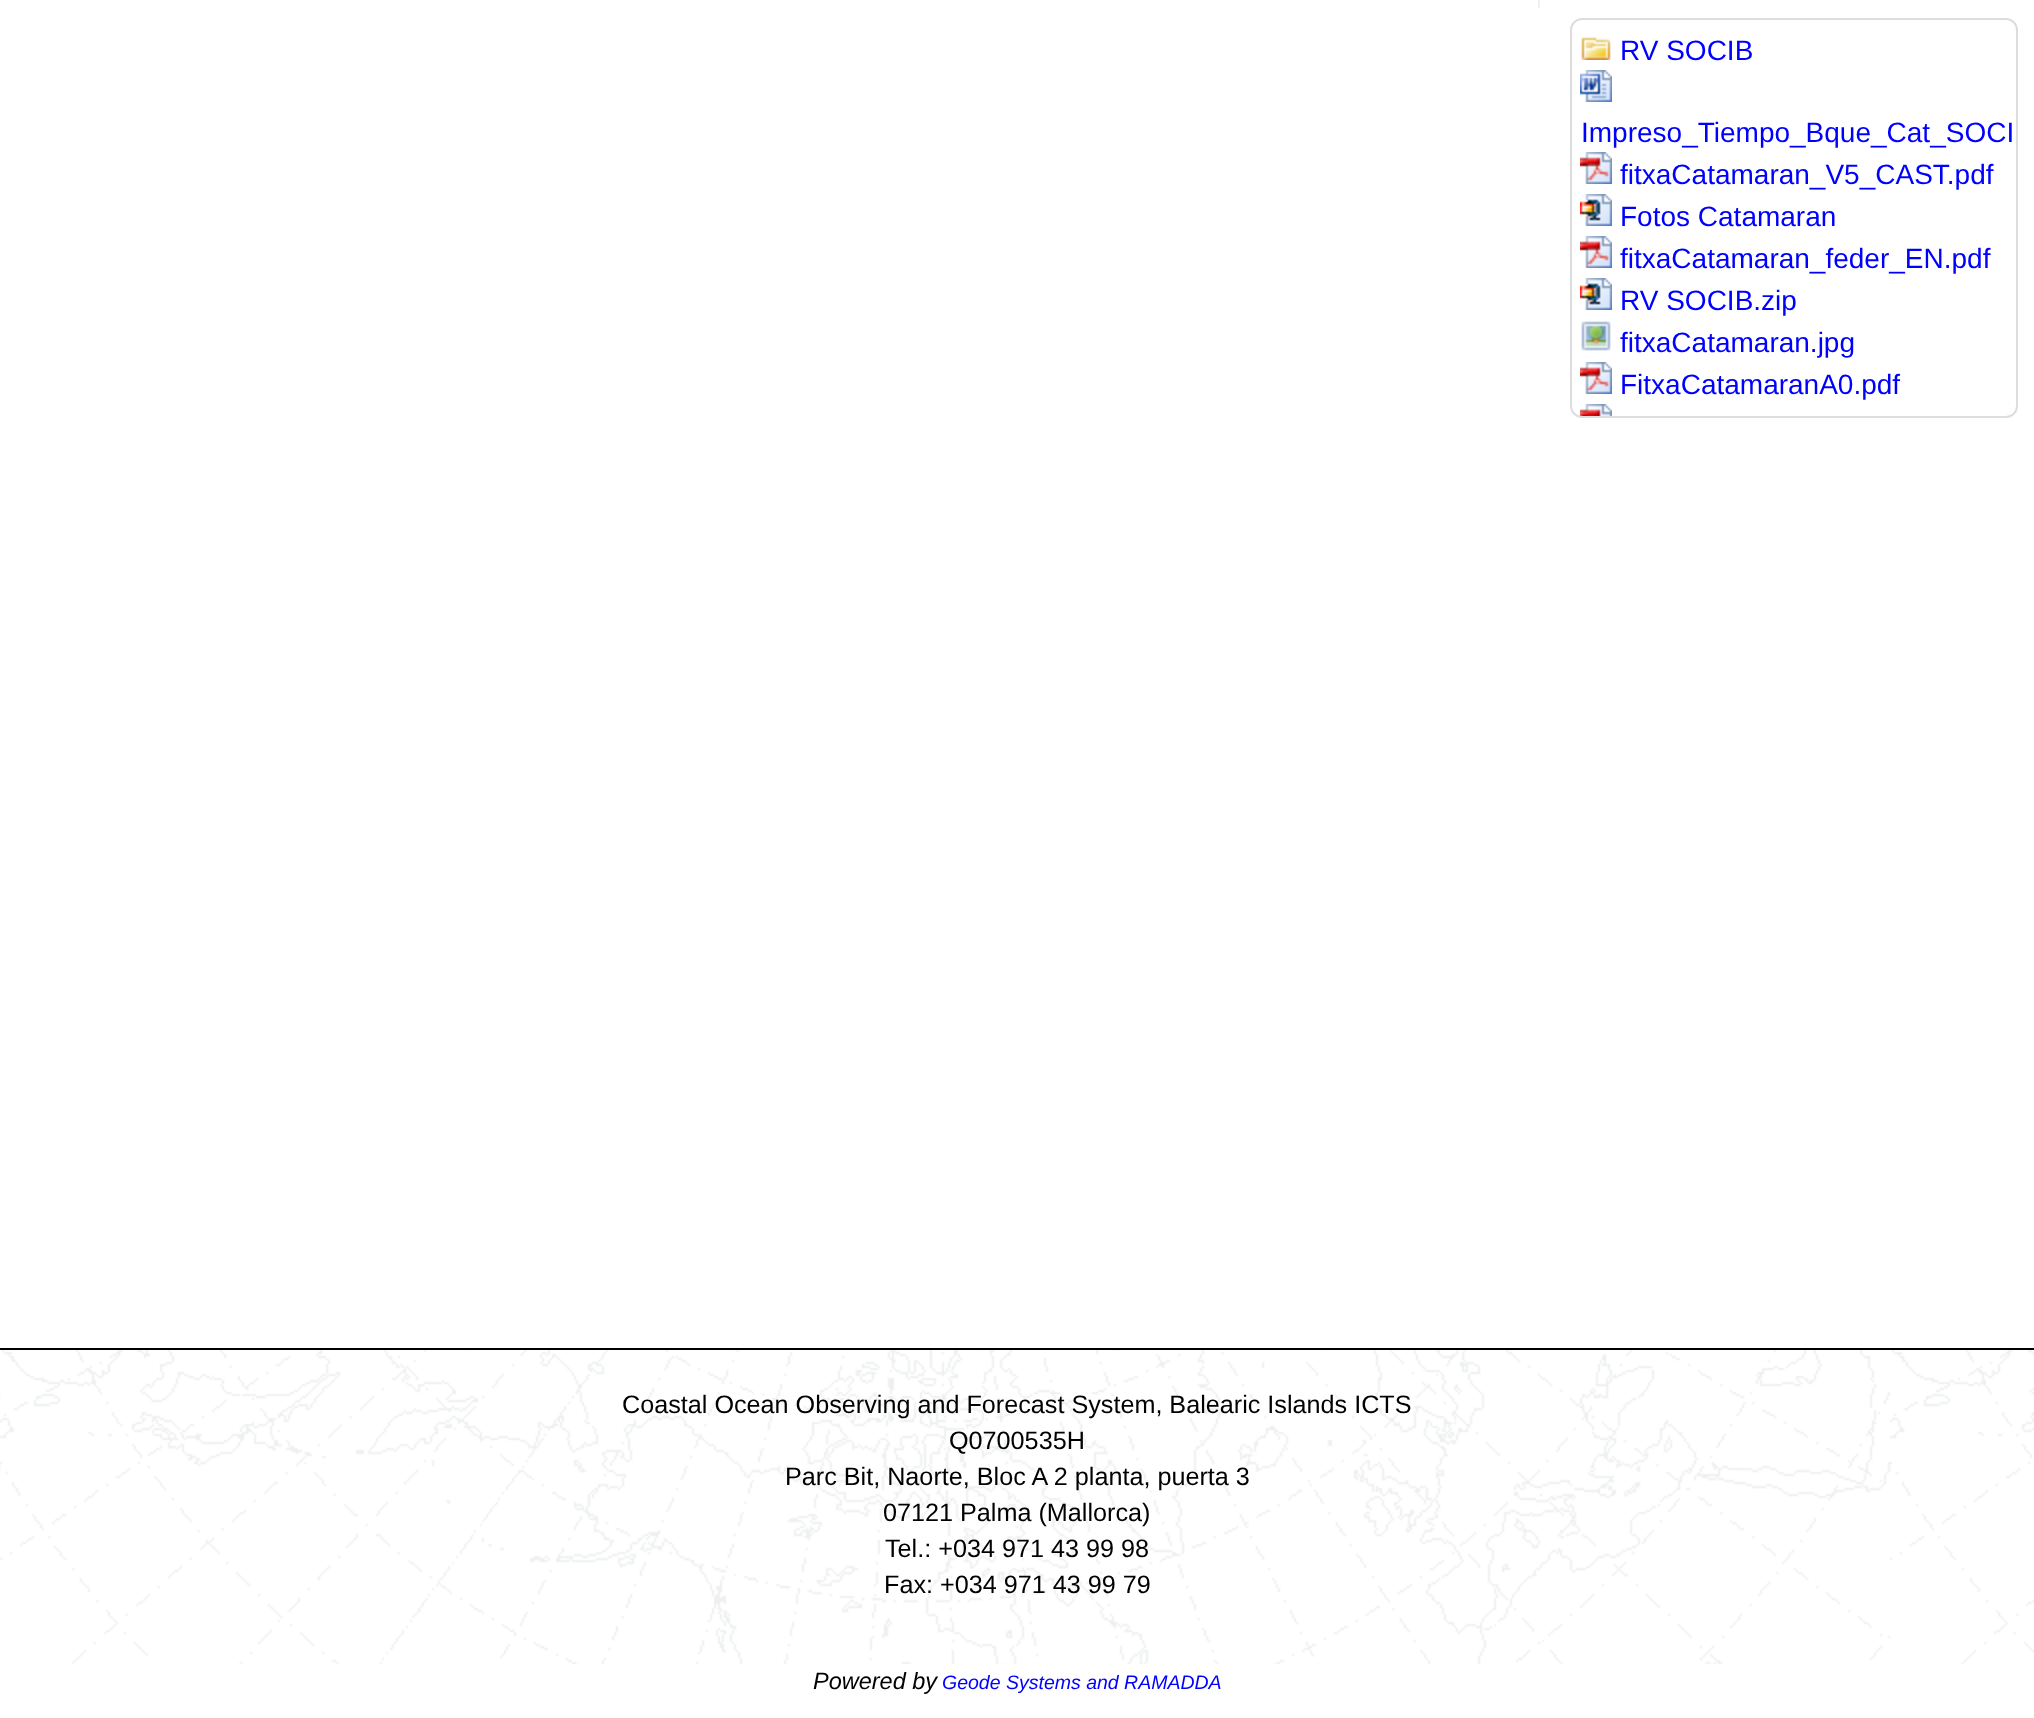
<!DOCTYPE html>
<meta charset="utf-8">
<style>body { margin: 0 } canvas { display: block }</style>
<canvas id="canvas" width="2034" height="1718"></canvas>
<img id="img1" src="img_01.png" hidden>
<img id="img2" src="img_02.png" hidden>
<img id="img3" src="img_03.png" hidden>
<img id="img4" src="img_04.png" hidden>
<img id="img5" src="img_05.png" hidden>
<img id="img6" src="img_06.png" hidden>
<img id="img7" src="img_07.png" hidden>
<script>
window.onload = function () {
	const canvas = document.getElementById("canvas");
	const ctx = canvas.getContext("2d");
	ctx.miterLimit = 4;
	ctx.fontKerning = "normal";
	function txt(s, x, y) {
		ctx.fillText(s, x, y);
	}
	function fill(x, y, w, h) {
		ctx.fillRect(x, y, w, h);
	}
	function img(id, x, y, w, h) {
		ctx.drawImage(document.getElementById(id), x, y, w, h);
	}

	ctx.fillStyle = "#FFFFFF";
	fill(0, 0, 2034, 1718);
	ctx.fillStyle = "#EFEFEF";
	fill(1538, 0, 2, 8);
	ctx.beginPath();
	ctx.roundRect(1571, 19, 446, 398, 11);
	ctx.strokeStyle = "#DDDDDD";
	ctx.lineWidth = 2;
	ctx.stroke();
	img("img1", 1581, 37, 30, 23);
	img("img2", 1580, 70, 32, 32);
	img("img3", 1580, 152, 32, 32);
	img("img4", 1580, 194, 32, 32);
	img("img3", 1580, 236, 32, 32);
	img("img4", 1580, 278, 32, 32);
	img("img5", 1581, 321, 30, 30);
	img("img3", 1580, 362, 32, 32);
	img("img6", 1580, 404, 32, 12);
	img("img7", 0, 1350, 2034, 314);
	ctx.fillStyle = "#000000";
	fill(0, 1348, 2034, 2);
	ctx.font = "28px Liberation Sans";
	ctx.fillStyle = "#0000FF";
	txt("RV SOCIB", 1620, 60);
	txt("Impreso_Tiempo_Bque_Cat_SOCI", 1581, 142);
	txt("fitxaCatamaran_V5_CAST.pdf", 1620, 184);
	txt("Fotos Catamaran", 1620, 226);
	txt("fitxaCatamaran_feder_EN.pdf", 1620, 268);
	txt("RV SOCIB.zip", 1620, 310);
	txt("fitxaCatamaran.jpg", 1620, 352);
	txt("FitxaCatamaranA0.pdf", 1620, 394);
	ctx.font = "25.2px Liberation Sans";
	ctx.fillStyle = "#000000";
	txt("Coastal Ocean Observing and Forecast System, Balearic Islands ICTS", 622, 1413);
	txt("Q0700535H", 949, 1449);
	txt("Parc Bit, Naorte, Bloc A 2 planta, puerta 3", 785, 1485);
	txt("07121 Palma (Mallorca)", 883, 1521);
	txt("Tel.: +034 971 43 99 98", 885, 1557);
	txt("Fax: +034 971 43 99 79", 884, 1593);
	ctx.font = "italic 23.5px Liberation Sans";
	txt("Powered by", 813, 1689);
	ctx.font = "italic 19.5px Liberation Sans";
	ctx.fillStyle = "#0000FF";
	txt("Geode Systems and RAMADDA", 942, 1689);
};
</script>
